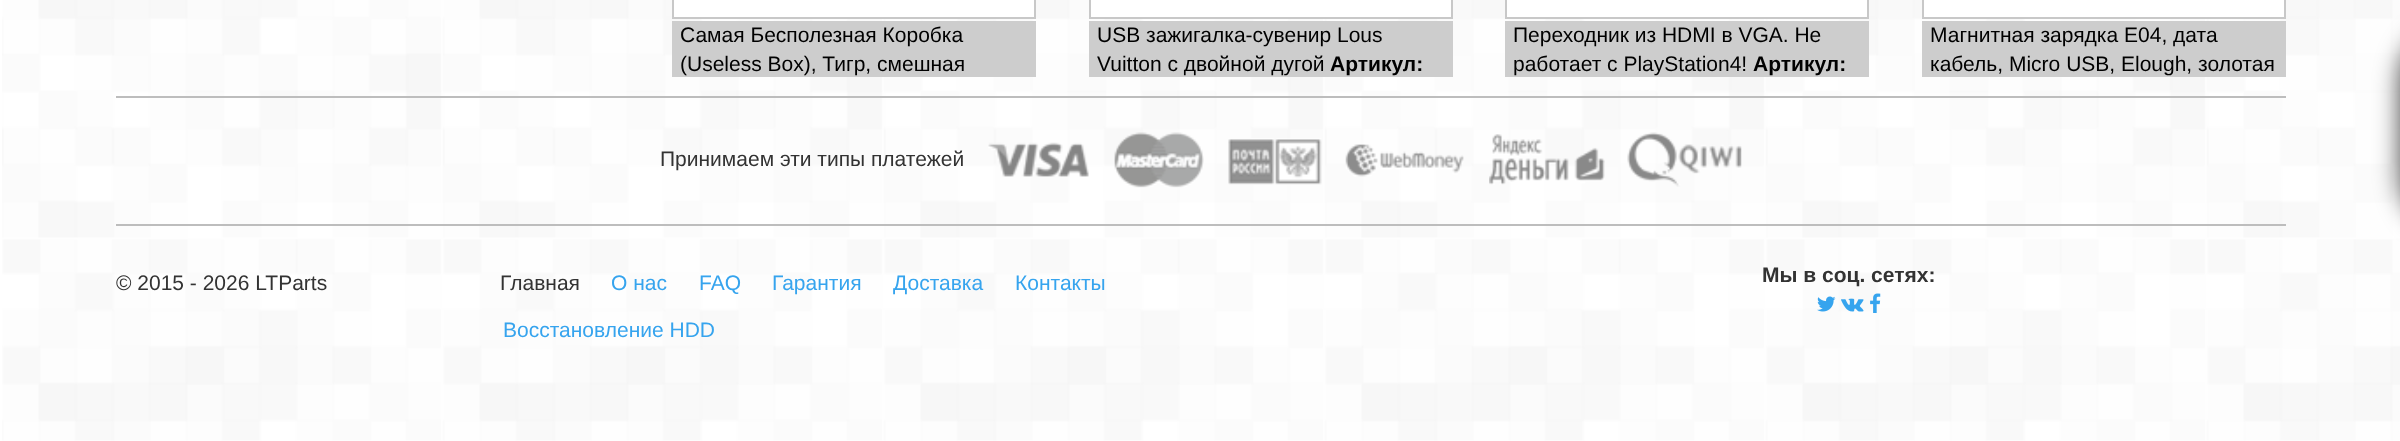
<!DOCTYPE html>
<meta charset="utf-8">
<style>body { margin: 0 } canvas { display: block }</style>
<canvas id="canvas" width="2400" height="441"></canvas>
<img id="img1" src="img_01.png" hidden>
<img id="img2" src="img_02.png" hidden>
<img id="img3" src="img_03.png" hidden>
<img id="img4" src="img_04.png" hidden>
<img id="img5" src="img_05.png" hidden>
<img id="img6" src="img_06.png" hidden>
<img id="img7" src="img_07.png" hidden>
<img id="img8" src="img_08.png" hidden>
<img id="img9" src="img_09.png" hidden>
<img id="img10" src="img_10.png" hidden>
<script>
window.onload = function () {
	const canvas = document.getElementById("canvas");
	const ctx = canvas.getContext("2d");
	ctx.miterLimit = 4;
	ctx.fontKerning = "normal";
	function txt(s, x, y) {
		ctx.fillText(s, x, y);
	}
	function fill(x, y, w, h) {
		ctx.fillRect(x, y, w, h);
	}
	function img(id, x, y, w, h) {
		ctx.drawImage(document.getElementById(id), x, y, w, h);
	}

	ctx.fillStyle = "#FFFFFF";
	fill(0, 0, 2400, 441);
	img("img1", 2, 0, 2398, 441);
	ctx.beginPath();
	ctx.rect(673, -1, 362, 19);
	ctx.fill();
	ctx.strokeStyle = "#C8C8C8";
	ctx.lineWidth = 2;
	ctx.stroke();
	ctx.fillStyle = "#CDCDCD";
	fill(672, 21, 364, 56);
	ctx.fillStyle = "#FFFFFF";
	ctx.beginPath();
	ctx.rect(1090, -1, 362, 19);
	ctx.fill();
	ctx.stroke();
	ctx.fillStyle = "#CDCDCD";
	fill(1089, 21, 364, 56);
	ctx.fillStyle = "#FFFFFF";
	ctx.beginPath();
	ctx.rect(1506, -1, 362, 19);
	ctx.fill();
	ctx.stroke();
	ctx.fillStyle = "#CDCDCD";
	fill(1505, 21, 364, 56);
	ctx.fillStyle = "#FFFFFF";
	ctx.beginPath();
	ctx.rect(1923, -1, 362, 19);
	ctx.fill();
	ctx.stroke();
	ctx.fillStyle = "#CDCDCD";
	fill(1922, 21, 364, 56);
	ctx.fillStyle = "rgba(0, 0, 0, 0.75)";
	ctx.filter = "blur(13px)";
	ctx.beginPath();
	ctx.roundRect(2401, 23, 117, 210, 79);
	ctx.fill();
	ctx.filter = "none";
	ctx.fillStyle = "#BDBDBD";
	fill(116, 96, 2170, 2);
	fill(116, 224, 2170, 2);
	img("img2", 988, 142, 101, 35);
	img("img3", 1114, 132, 90, 56);
	img("img4", 1228, 138, 94, 47);
	img("img5", 1345, 144, 119, 33);
	img("img6", 1489, 134, 116, 51);
	img("img7", 1627, 132, 115, 55);
	img("img8", 1817, 296, 19, 16);
	img("img9", 1841, 298, 23, 14);
	img("img10", 1870, 293, 11, 20);
	ctx.font = "21px Liberation Sans";
	ctx.fillStyle = "#000000";
	txt("Самая Бесполезная Коробка", 680, 42);
	txt("(Useless Box), Тигр, смешная", 680, 71);
	txt("USB зажигалка-сувенир Lous", 1097, 42);
	txt("Vuitton с двойной дугой", 1097, 71);
	ctx.font = "bold 21px Liberation Sans";
	txt("Артикул:", 1330, 71);
	ctx.font = "21px Liberation Sans";
	txt("Переходник из HDMI в VGA. Не", 1513, 42);
	txt("работает с PlayStation4!", 1513, 71);
	ctx.font = "bold 21px Liberation Sans";
	txt("Артикул:", 1753, 71);
	ctx.font = "21px Liberation Sans";
	txt("Магнитная зарядка E04, дата", 1930, 42);
	txt("кабель, Micro USB, Elough, золотая", 1930, 71);
	ctx.fillStyle = "#333333";
	txt("Принимаем эти типы платежей", 660, 166);
	txt("© 2015 - 2026 LTParts", 116, 290);
	txt("Главная", 500, 290);
	ctx.fillStyle = "#36A4EE";
	txt("О нас", 611, 290);
	txt("FAQ", 699, 290);
	txt("Гарантия", 772, 290);
	txt("Доставка", 893, 290);
	txt("Контакты", 1015, 290);
	txt("Восстановление HDD", 503, 337);
	ctx.font = "bold 21px Liberation Sans";
	ctx.fillStyle = "#333333";
	txt("Мы в cоц. сетях:", 1762, 282);
};
</script>
